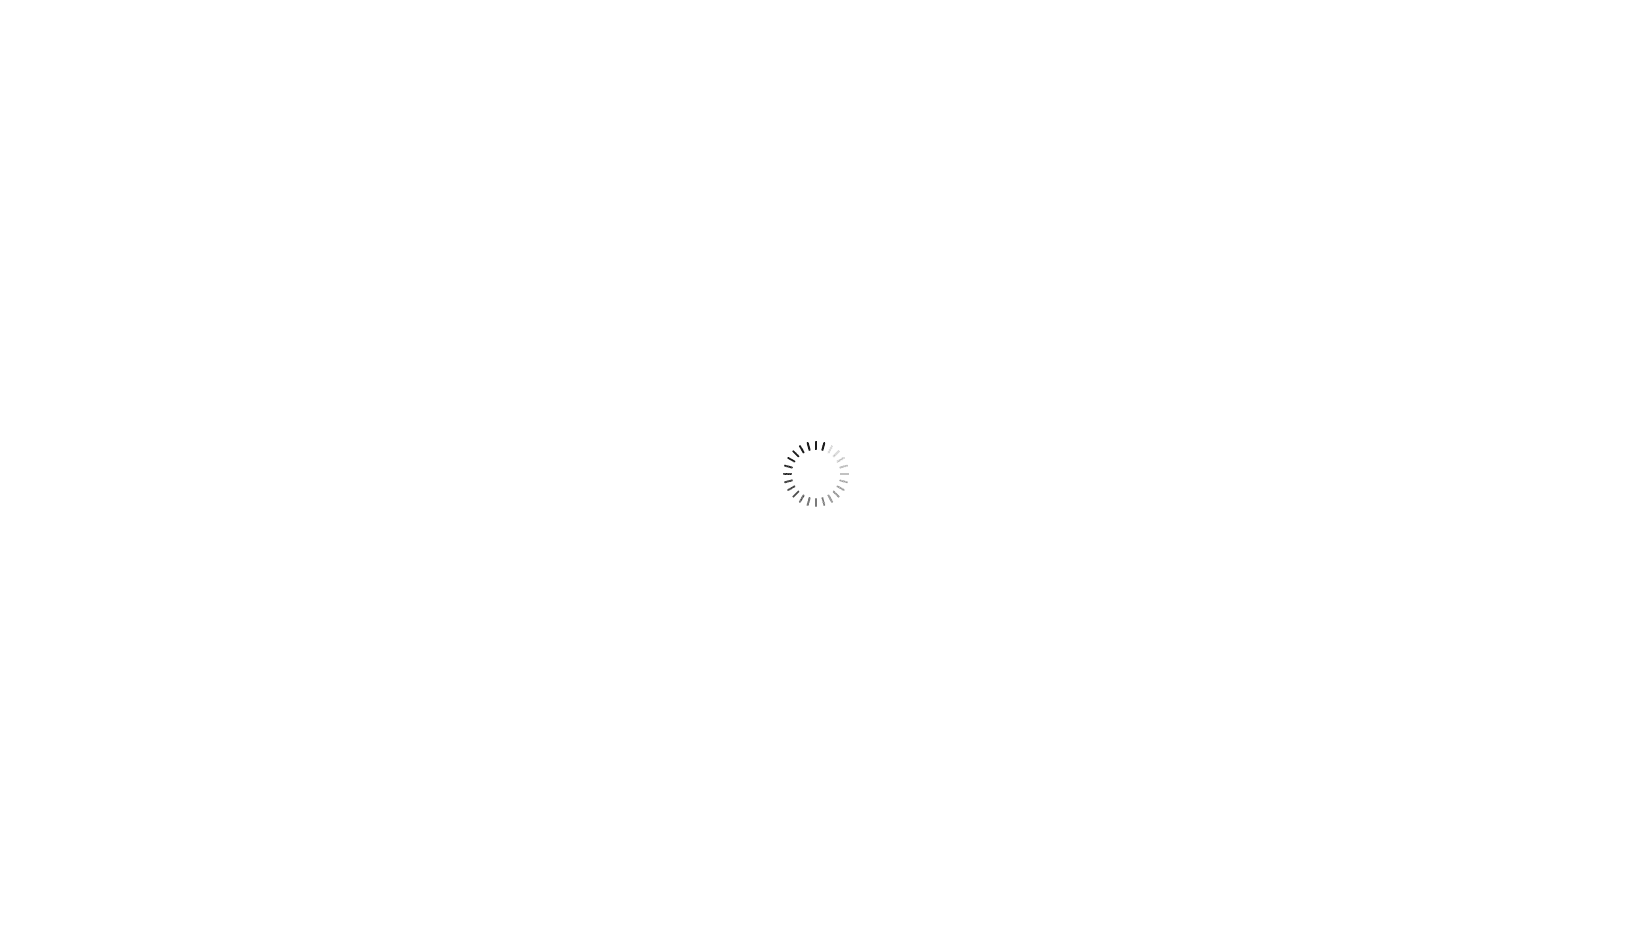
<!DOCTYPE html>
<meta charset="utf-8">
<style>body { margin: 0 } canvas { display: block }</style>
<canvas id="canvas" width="1632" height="948"></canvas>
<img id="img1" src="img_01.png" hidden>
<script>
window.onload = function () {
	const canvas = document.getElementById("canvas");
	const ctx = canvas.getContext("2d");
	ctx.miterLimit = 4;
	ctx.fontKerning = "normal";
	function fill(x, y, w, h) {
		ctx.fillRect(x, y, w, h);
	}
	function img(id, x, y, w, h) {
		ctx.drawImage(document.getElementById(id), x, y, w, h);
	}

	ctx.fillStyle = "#FFFFFF";
	fill(0, 0, 1632, 948);
	img("img1", 783, 441, 66, 66);
};
</script>
